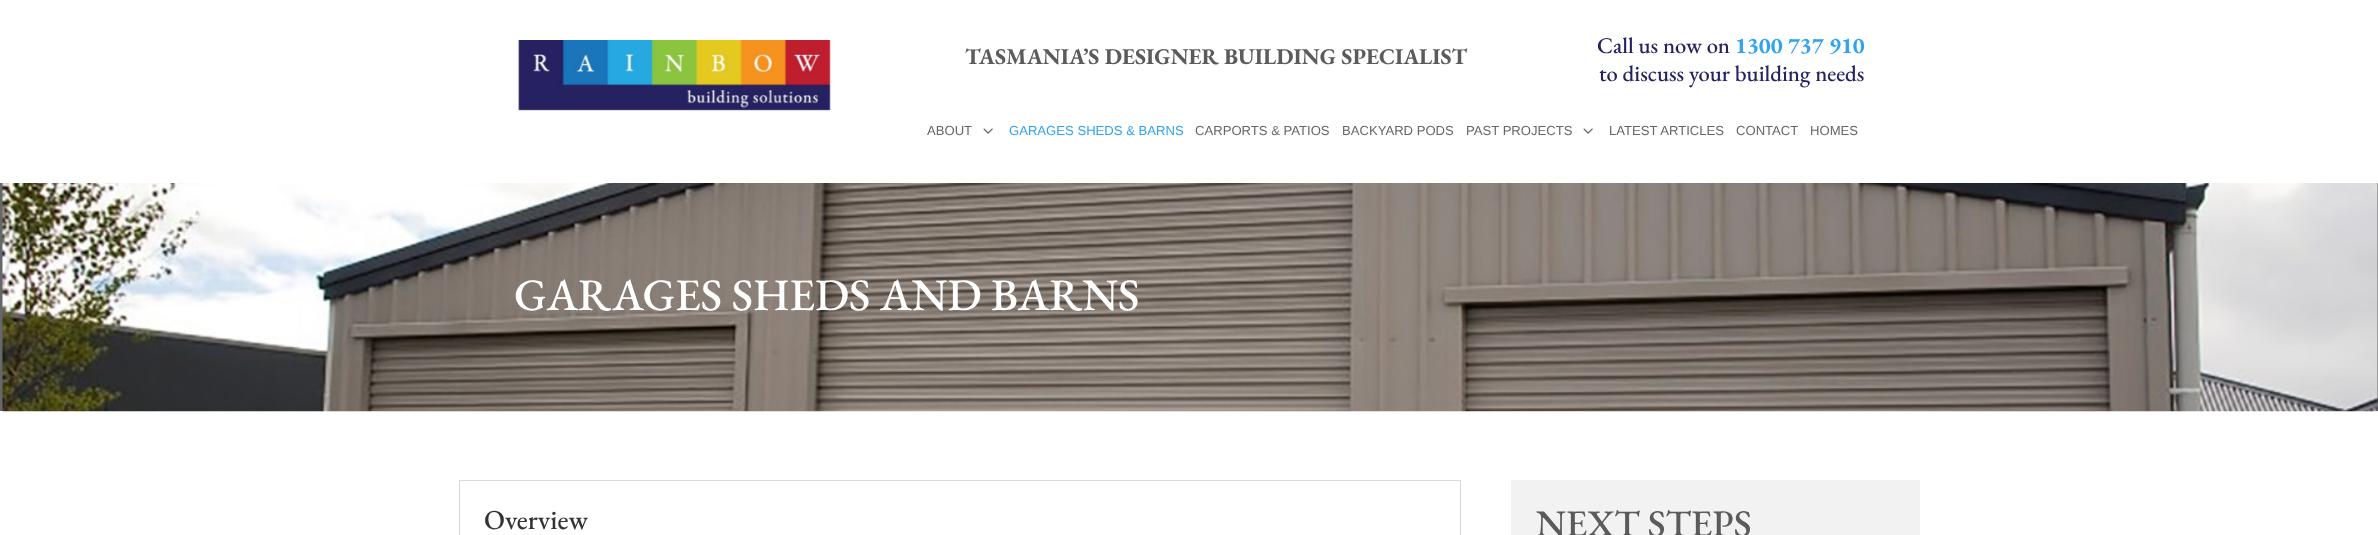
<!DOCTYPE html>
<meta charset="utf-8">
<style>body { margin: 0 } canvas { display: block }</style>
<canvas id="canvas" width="2378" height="535"></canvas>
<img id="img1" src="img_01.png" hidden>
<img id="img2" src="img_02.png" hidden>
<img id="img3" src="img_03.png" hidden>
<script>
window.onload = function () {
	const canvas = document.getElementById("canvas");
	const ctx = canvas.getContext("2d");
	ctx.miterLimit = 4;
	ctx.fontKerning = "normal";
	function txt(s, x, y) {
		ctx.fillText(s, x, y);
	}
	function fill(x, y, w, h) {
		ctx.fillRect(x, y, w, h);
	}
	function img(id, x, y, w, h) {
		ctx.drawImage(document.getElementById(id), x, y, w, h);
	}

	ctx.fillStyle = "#FFFFFF";
	fill(0, 0, 2378, 535);
	img("img1", 518, 40, 313, 71);
	img("img2", 983, 128, 10, 6);
	img("img2", 1583, 128, 10, 6);
	ctx.fillStyle = "#64686B";
	fill(0, 183, 2378, 228);
	img("img3", 2, 183, 2376, 229);
	ctx.strokeStyle = "#D9D9D9";
	ctx.strokeRect(459.5, 480.5, 1001, 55);
	ctx.fillStyle = "#F2F2F2";
	fill(1511, 480, 409, 55);
	ctx.font = "bold 22.5px EB Garamond";
	ctx.fillStyle = "#5B5B5B";
	txt("TASMANIA’S DESIGNER BUILDING SPECIALIST", 965, 64);
	ctx.font = "500 22.5px EB Garamond";
	ctx.fillStyle = "#262261";
	txt("Call us now on", 1597, 53);
	ctx.font = "bold 22.5px EB Garamond";
	ctx.fillStyle = "#2EA3F2";
	txt("1300 737 910", 1735, 53);
	ctx.font = "500 22.5px EB Garamond";
	ctx.fillStyle = "#262261";
	txt("to discuss your building needs", 1599, 81);
	ctx.font = "13.1px Liberation Sans";
	ctx.fillStyle = "#666666";
	txt("ABOUT", 927, 135);
	ctx.fillStyle = "#2EA3F2";
	txt("GARAGES SHEDS & BARNS", 1009, 135);
	ctx.fillStyle = "#666666";
	txt("CARPORTS & PATIOS", 1195, 135);
	txt("BACKYARD PODS", 1342, 135);
	txt("PAST PROJECTS", 1466, 135);
	txt("LATEST ARTICLES", 1609, 135);
	txt("CONTACT", 1736, 135);
	txt("HOMES", 1810, 135);
	ctx.font = "500 45px EB Garamond";
	ctx.fillStyle = "#FFFFFF";
	txt("GARAGES SHEDS AND BARNS", 514, 310);
	ctx.font = "500 27.5px EB Garamond";
	ctx.fillStyle = "#333333";
	txt("Overview", 484, 529);
	ctx.font = "500 37.5px EB Garamond";
	ctx.fillStyle = "#5B5B5B";
	txt("NEXT STEPS", 1536, 536);
};
</script>
